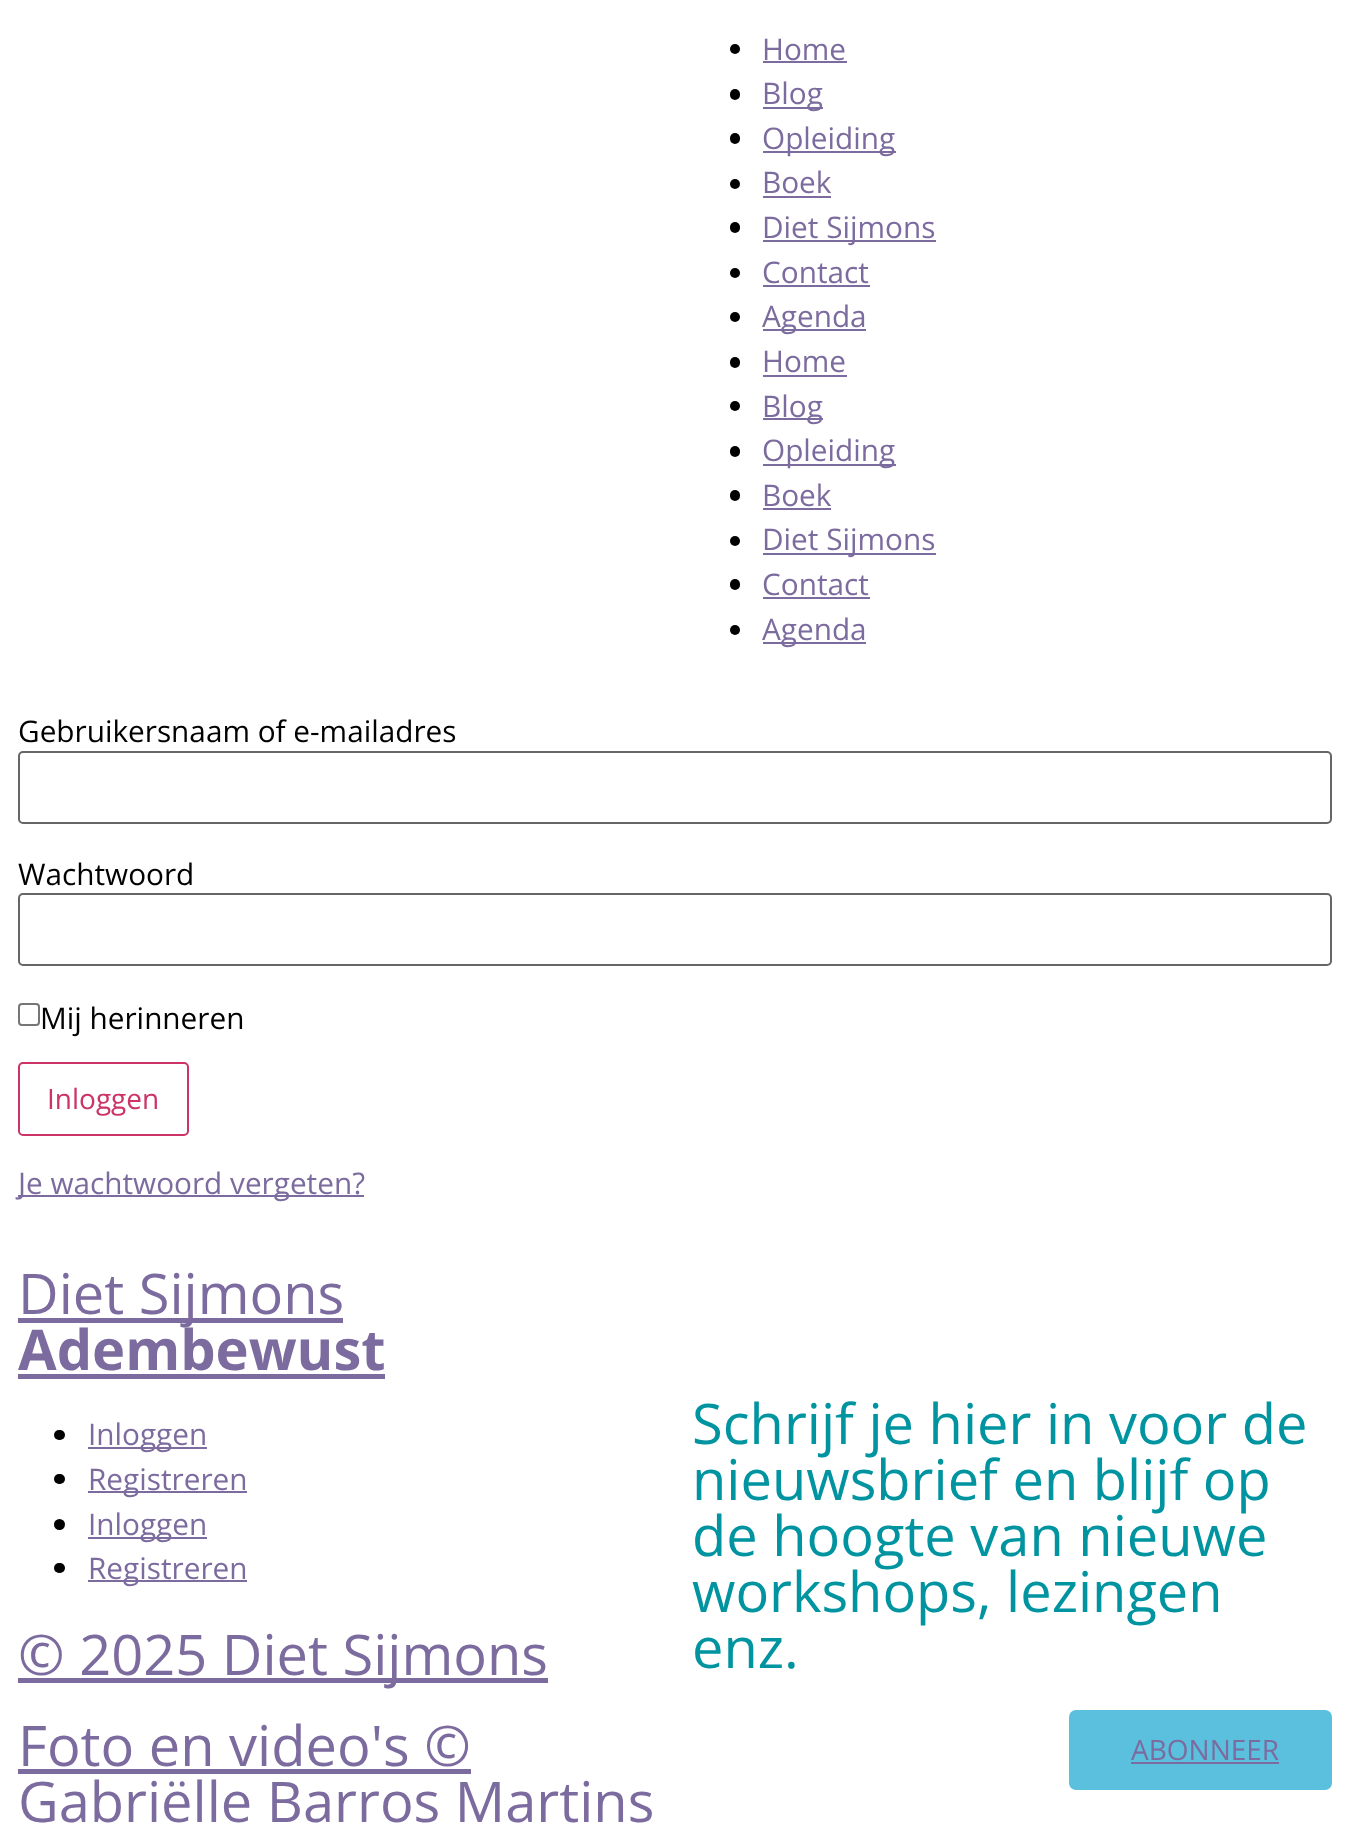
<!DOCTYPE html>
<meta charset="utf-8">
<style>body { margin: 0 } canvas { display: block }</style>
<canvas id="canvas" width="1348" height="1825"></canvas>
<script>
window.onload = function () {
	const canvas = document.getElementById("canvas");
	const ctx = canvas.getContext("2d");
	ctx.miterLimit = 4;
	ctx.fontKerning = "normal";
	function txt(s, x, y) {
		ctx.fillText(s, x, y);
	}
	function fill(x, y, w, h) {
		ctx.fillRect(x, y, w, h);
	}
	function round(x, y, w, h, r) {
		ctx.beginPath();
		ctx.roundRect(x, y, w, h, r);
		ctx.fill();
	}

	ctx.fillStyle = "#FFFFFF";
	fill(0, 0, 1348, 1825);
	ctx.fillStyle = "#000000";
	ctx.beginPath();
	ctx.arc(735, 49, 5, 0, Math.PI * 2);
	ctx.fill();
	ctx.fillStyle = "#7C6B9E";
	fill(763, 61, 84, 2);
	ctx.fillStyle = "#000000";
	round(730, 89, 10, 11, 5);
	ctx.fillStyle = "#7C6B9E";
	fill(763, 107, 60, 2);
	ctx.fillStyle = "#000000";
	round(730, 133, 10, 11, 5);
	ctx.fillStyle = "#7C6B9E";
	fill(763, 151, 133, 2);
	ctx.fillStyle = "#000000";
	ctx.beginPath();
	ctx.arc(735, 184, 5, 0, Math.PI * 2);
	ctx.fill();
	ctx.fillStyle = "#7C6B9E";
	fill(763, 196, 68, 2);
	ctx.fillStyle = "#000000";
	round(730, 222, 10, 11, 5);
	ctx.fillStyle = "#7C6B9E";
	fill(763, 240, 173, 2);
	ctx.fillStyle = "#000000";
	ctx.beginPath();
	ctx.arc(735, 273, 5, 0, Math.PI * 2);
	ctx.fill();
	ctx.fillStyle = "#7C6B9E";
	fill(763, 285, 107, 2);
	ctx.fillStyle = "#000000";
	ctx.beginPath();
	ctx.arc(735, 317, 5, 0, Math.PI * 2);
	ctx.fill();
	ctx.fillStyle = "#7C6B9E";
	fill(763, 329, 103, 2);
	ctx.fillStyle = "#000000";
	round(730, 357, 10, 11, 5);
	ctx.fillStyle = "#7C6B9E";
	fill(763, 375, 84, 2);
	ctx.fillStyle = "#000000";
	ctx.beginPath();
	ctx.arc(735, 406, 5, 0, Math.PI * 2);
	ctx.fill();
	ctx.fillStyle = "#7C6B9E";
	fill(763, 418, 60, 2);
	ctx.fillStyle = "#000000";
	round(730, 446, 10, 11, 5);
	ctx.fillStyle = "#7C6B9E";
	fill(763, 464, 133, 2);
	ctx.fillStyle = "#000000";
	round(730, 490, 10, 11, 5);
	ctx.fillStyle = "#7C6B9E";
	fill(763, 508, 68, 2);
	ctx.fillStyle = "#000000";
	ctx.beginPath();
	ctx.arc(735, 541, 5, 0, Math.PI * 2);
	ctx.fill();
	ctx.fillStyle = "#7C6B9E";
	fill(763, 553, 173, 2);
	ctx.fillStyle = "#000000";
	round(730, 579, 10, 11, 5);
	ctx.fillStyle = "#7C6B9E";
	fill(763, 597, 107, 2);
	ctx.fillStyle = "#000000";
	ctx.beginPath();
	ctx.arc(735, 630, 5, 0, Math.PI * 2);
	ctx.fill();
	ctx.fillStyle = "#7C6B9E";
	fill(763, 642, 103, 2);
	ctx.beginPath();
	ctx.roundRect(19, 752, 1312, 71, 4);
	ctx.strokeStyle = "#666666";
	ctx.lineWidth = 2;
	ctx.stroke();
	ctx.beginPath();
	ctx.roundRect(19, 894, 1312, 71, 4);
	ctx.stroke();
	ctx.beginPath();
	ctx.roundRect(19, 1004, 20, 21, 3);
	ctx.strokeStyle = "#767676";
	ctx.stroke();
	ctx.beginPath();
	ctx.roundRect(19, 1063, 169, 72, 4);
	ctx.strokeStyle = "#CC3366";
	ctx.stroke();
	fill(18, 1195, 346, 2);
	fill(18, 1318, 325, 5);
	fill(18, 1374, 367, 5);
	ctx.fillStyle = "#000000";
	round(54, 1430, 11, 10, 5);
	ctx.fillStyle = "#7C6B9E";
	fill(88, 1447, 119, 2);
	ctx.fillStyle = "#000000";
	round(54, 1474, 11, 10, 5);
	ctx.fillStyle = "#7C6B9E";
	fill(88, 1491, 159, 2);
	ctx.fillStyle = "#000000";
	ctx.beginPath();
	ctx.arc(59.5, 1524.5, 5.5, 0, Math.PI * 2);
	ctx.fill();
	ctx.fillStyle = "#7C6B9E";
	fill(88, 1537, 119, 2);
	ctx.fillStyle = "#000000";
	round(54, 1563, 11, 10, 5);
	ctx.fillStyle = "#7C6B9E";
	fill(88, 1580, 159, 2);
	fill(18, 1678, 530, 5);
	fill(18, 1769, 453, 5);
	ctx.fillStyle = "#5BC0DE";
	round(1069, 1710, 263, 80, 7);
	ctx.fillStyle = "#7C6B9E";
	fill(1131, 1762, 148, 2);
	ctx.font = "29.75px Open Sans";
	txt("Home", 762, 60);
	txt("Blog", 762, 104);
	txt("Opleiding", 762, 149);
	txt("Boek", 762, 193);
	txt("Diet Sijmons", 762, 238);
	txt("Contact", 762, 283);
	txt("Agenda", 762, 327);
	txt("Home", 762, 372);
	txt("Blog", 762, 417);
	txt("Opleiding", 762, 461);
	txt("Boek", 762, 506);
	txt("Diet Sijmons", 762, 550);
	txt("Contact", 762, 595);
	txt("Agenda", 762, 640);
	ctx.fillStyle = "#000000";
	txt("Gebruikersnaam of e-mailadres", 18, 742);
	txt("Wachtwoord", 18, 885);
	txt("Mij herinneren", 40, 1029);
	ctx.font = "28px Open Sans";
	ctx.fillStyle = "#CC3366";
	txt("Inloggen", 47, 1109);
	ctx.font = "29.75px Open Sans";
	ctx.fillStyle = "#7C6B9E";
	txt("Je wachtwoord vergeten?", 18, 1194);
	ctx.font = "56px Open Sans";
	txt("Diet Sijmons", 18, 1314);
	ctx.font = "bold 56px Open Sans";
	txt("Adembewust", 18, 1370);
	ctx.font = "29.75px Open Sans";
	txt("Inloggen", 88, 1445);
	txt("Registreren", 88, 1490);
	txt("Inloggen", 88, 1535);
	txt("Registreren", 88, 1579);
	ctx.font = "56px Open Sans";
	txt("© 2025 Diet Sijmons", 18, 1675);
	txt("Foto en video's ©", 18, 1766);
	txt("Gabriëlle Barros Martins", 18, 1822);
	ctx.fillStyle = "#0094A0";
	txt("Schrijf je hier in voor de", 692, 1444);
	txt("nieuwsbrief en blijf op", 692, 1500);
	txt("de hoogte van nieuwe", 692, 1556);
	txt("workshops, lezingen", 692, 1612);
	txt("enz.", 692, 1668);
	ctx.font = "28px Open Sans";
	ctx.fillStyle = "#7C6B9E";
	txt("ABONNEER", 1131, 1760);
};
</script>
